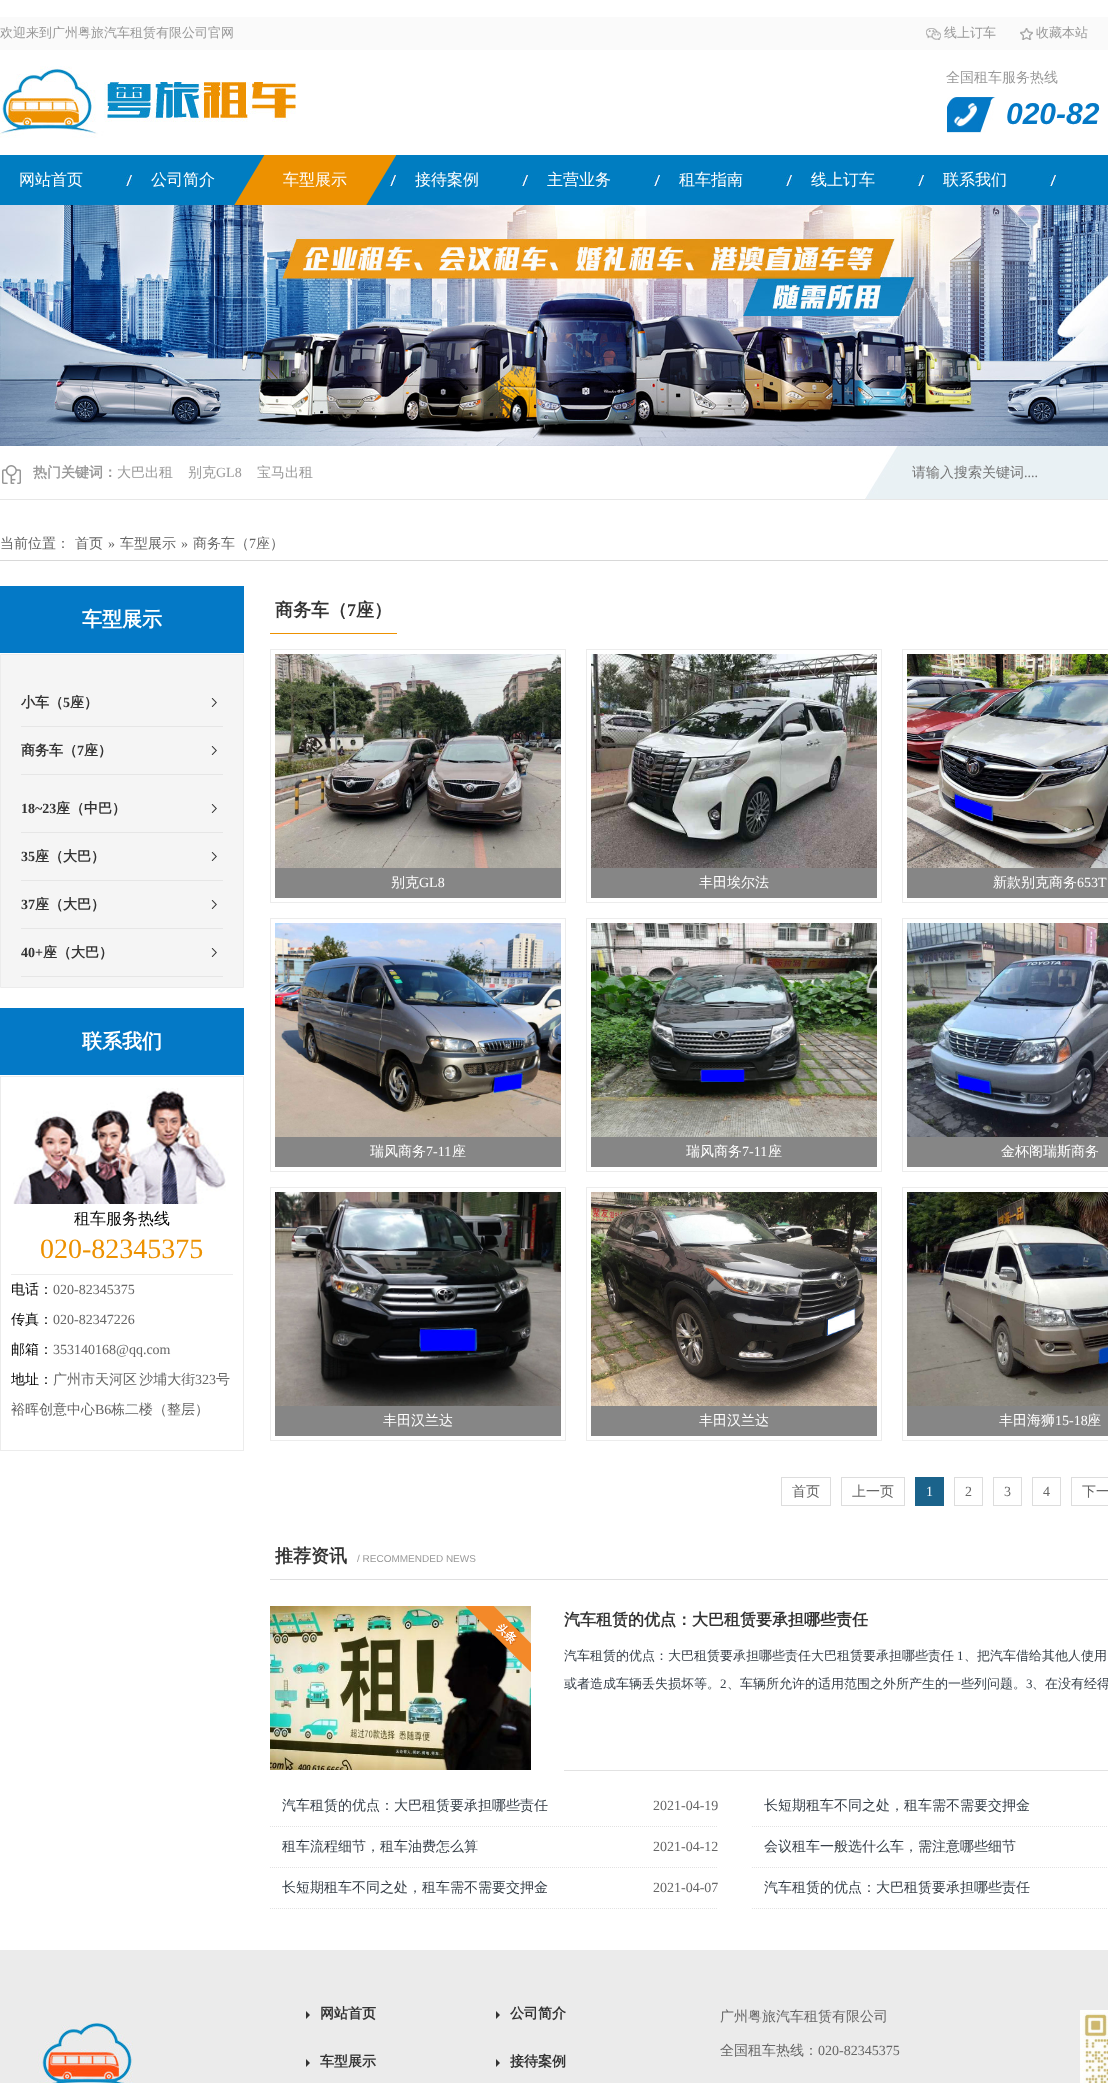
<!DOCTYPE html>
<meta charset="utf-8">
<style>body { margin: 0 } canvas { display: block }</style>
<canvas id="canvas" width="1108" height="2083"></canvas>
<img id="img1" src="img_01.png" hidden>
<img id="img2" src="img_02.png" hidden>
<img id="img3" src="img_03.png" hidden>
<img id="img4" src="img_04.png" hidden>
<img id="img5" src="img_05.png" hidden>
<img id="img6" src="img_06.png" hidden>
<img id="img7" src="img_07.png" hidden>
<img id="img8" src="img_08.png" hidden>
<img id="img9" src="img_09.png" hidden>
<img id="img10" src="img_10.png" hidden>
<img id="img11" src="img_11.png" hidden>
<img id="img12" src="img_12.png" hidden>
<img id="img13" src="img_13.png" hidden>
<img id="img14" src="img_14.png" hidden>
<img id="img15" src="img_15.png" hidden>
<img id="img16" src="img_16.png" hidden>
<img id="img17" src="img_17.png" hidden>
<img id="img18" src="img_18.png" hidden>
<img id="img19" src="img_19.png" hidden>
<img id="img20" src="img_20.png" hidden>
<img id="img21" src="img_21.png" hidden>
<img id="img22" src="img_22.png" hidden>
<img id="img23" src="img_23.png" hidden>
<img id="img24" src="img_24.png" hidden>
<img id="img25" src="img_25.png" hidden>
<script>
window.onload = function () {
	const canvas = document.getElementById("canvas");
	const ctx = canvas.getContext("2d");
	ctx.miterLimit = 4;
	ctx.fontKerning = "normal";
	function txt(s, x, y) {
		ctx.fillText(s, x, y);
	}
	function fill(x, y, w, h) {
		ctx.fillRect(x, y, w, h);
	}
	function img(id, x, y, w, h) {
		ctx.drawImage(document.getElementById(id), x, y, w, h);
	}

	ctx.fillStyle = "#FFFFFF";
	fill(0, 0, 1108, 2083);
	ctx.fillStyle = "#FAFAFA";
	fill(0, 17, 1108, 33);
	img("img1", 926, 28, 15, 12);
	img("img2", 1020, 28, 13, 12);
	img("img3", 0, 66, 296, 72);
	img("img4", 947, 97, 49, 36);
	ctx.fillStyle = "#007DC1";
	fill(0, 155, 1108, 50);
	img("img5", 125, 175, 7, 11);
	img("img5", 389, 175, 7, 11);
	img("img6", 234, 155, 162, 50);
	img("img5", 521, 175, 7, 11);
	img("img5", 653, 175, 7, 11);
	img("img5", 785, 175, 7, 11);
	img("img5", 917, 175, 7, 11);
	img("img5", 1049, 175, 7, 11);
	img("img7", 0, 205, 1108, 241);
	ctx.fillStyle = "#E7E7E7";
	fill(0, 499, 1108, 1);
	img("img8", 2, 465, 19, 19);
	img("img9", 865, 446, 243, 53);
	ctx.fillStyle = "#D8D8D8";
	fill(0, 560, 1108, 1);
	ctx.fillStyle = "#0479C6";
	fill(0, 586, 244, 67);
	ctx.fillStyle = "#F5F5F5";
	ctx.beginPath();
	ctx.rect(0.5, 654.5, 243, 333);
	ctx.fill();
	ctx.strokeStyle = "#ECECEC";
	ctx.stroke();
	ctx.fillStyle = "#E6E6E6";
	fill(21, 726, 202, 1);
	img("img10", 211, 698, 6, 9);
	fill(21, 774, 202, 1);
	img("img10", 211, 746, 6, 9);
	fill(21, 832, 202, 1);
	img("img10", 211, 804, 6, 9);
	fill(21, 880, 202, 1);
	img("img10", 211, 852, 6, 9);
	fill(21, 928, 202, 1);
	img("img10", 211, 900, 6, 9);
	fill(21, 976, 202, 1);
	img("img10", 211, 948, 6, 9);
	ctx.fillStyle = "#0479C6";
	fill(0, 1008, 244, 67);
	ctx.strokeRect(0.5, 1076.5, 243, 374);
	img("img11", 13, 1088, 213, 116);
	ctx.fillStyle = "#ECECEC";
	fill(11, 1274, 222, 1);
	ctx.fillStyle = "#ED9100";
	fill(270, 633, 127, 1);
	ctx.strokeRect(270.5, 649.5, 295, 253);
	img("img12", 275, 654, 286, 214);
	ctx.fillStyle = "#868686";
	fill(275, 868, 286, 30);
	ctx.strokeRect(586.5, 649.5, 295, 253);
	img("img13", 591, 654, 286, 214);
	fill(591, 868, 286, 30);
	ctx.strokeRect(902.5, 649.5, 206, 253);
	img("img14", 907, 654, 201, 214);
	fill(907, 868, 201, 30);
	ctx.strokeRect(270.5, 918.5, 295, 253);
	img("img15", 275, 923, 286, 214);
	fill(275, 1137, 286, 30);
	ctx.strokeRect(586.5, 918.5, 295, 253);
	img("img16", 591, 923, 286, 214);
	fill(591, 1137, 286, 30);
	ctx.strokeRect(902.5, 918.5, 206, 253);
	img("img17", 907, 923, 201, 214);
	fill(907, 1137, 201, 30);
	ctx.strokeRect(270.5, 1187.5, 295, 253);
	img("img18", 275, 1192, 286, 214);
	fill(275, 1406, 286, 30);
	ctx.strokeRect(586.5, 1187.5, 295, 253);
	img("img19", 591, 1192, 286, 214);
	fill(591, 1406, 286, 30);
	ctx.strokeRect(902.5, 1187.5, 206, 253);
	img("img20", 907, 1192, 201, 214);
	fill(907, 1406, 201, 30);
	ctx.strokeStyle = "#DDDDDD";
	ctx.strokeRect(781.5, 1477.5, 49, 28);
	ctx.strokeRect(841.5, 1477.5, 63, 28);
	ctx.fillStyle = "#1B638B";
	fill(915, 1477, 29, 29);
	ctx.strokeRect(954.5, 1477.5, 28, 28);
	ctx.strokeRect(993.5, 1477.5, 28, 28);
	ctx.strokeRect(1032.5, 1477.5, 28, 28);
	ctx.strokeRect(1071.5, 1477.5, 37, 28);
	ctx.fillStyle = "#DFDFE0";
	fill(270, 1579, 838, 1);
	img("img21", 270, 1606, 261, 164);
	img("img22", 465, 1606, 66, 66);
	ctx.fillStyle = "#E2E2E2";
	fill(564, 1770, 544, 1);
	ctx.beginPath();
	ctx.moveTo(270, 1826.5);
	ctx.lineTo(718, 1826.5);
	ctx.strokeStyle = "#E2E2E2";
	ctx.setLineDash([1, 1]);
	ctx.stroke();
	ctx.beginPath();
	ctx.moveTo(752, 1826.5);
	ctx.lineTo(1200, 1826.5);
	ctx.stroke();
	ctx.beginPath();
	ctx.moveTo(270, 1867.5);
	ctx.lineTo(718, 1867.5);
	ctx.stroke();
	ctx.beginPath();
	ctx.moveTo(752, 1867.5);
	ctx.lineTo(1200, 1867.5);
	ctx.stroke();
	ctx.beginPath();
	ctx.moveTo(270, 1908.5);
	ctx.lineTo(718, 1908.5);
	ctx.stroke();
	ctx.beginPath();
	ctx.moveTo(752, 1908.5);
	ctx.lineTo(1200, 1908.5);
	ctx.stroke();
	ctx.fillStyle = "#EBEBEB";
	fill(0, 1950, 1108, 133);
	img("img23", 37, 2020, 97, 63);
	img("img24", 306, 2011, 4, 8);
	img("img24", 496, 2011, 4, 8);
	img("img24", 306, 2059, 4, 8);
	img("img24", 496, 2059, 4, 8);
	img("img25", 1080, 2010, 28, 73);
	ctx.font = "500 13px WenQuanYi Zen Hei";
	ctx.fillStyle = "#999999";
	txt("欢迎来到广州粤旅汽车租赁有限公司官网", 0, 37);
	txt("线上订车", 944, 37);
	txt("收藏本站", 1036, 37);
	ctx.font = "500 14px WenQuanYi Zen Hei";
	txt("全国租车服务热线", 946, 82);
	ctx.font = "italic bold 30px Liberation Sans";
	ctx.fillStyle = "#0479C6";
	txt("020-82", 1006, 124);
	ctx.font = "500 16px WenQuanYi Zen Hei";
	ctx.fillStyle = "#FFFFFF";
	txt("网站首页", 19, 185);
	txt("公司简介", 151, 185);
	txt("车型展示", 283, 185);
	txt("接待案例", 415, 185);
	txt("主营业务", 547, 185);
	txt("租车指南", 679, 185);
	txt("线上订车", 811, 185);
	txt("联系我们", 943, 185);
	ctx.font = "bold 14px WenQuanYi Zen Hei";
	ctx.fillStyle = "#999999";
	txt("热门关键词：", 33, 477);
	ctx.font = "500 14px WenQuanYi Zen Hei";
	txt("大巴出租", 117, 477);
	txt("别克", 188, 477);
	ctx.font = "14px Liberation Serif";
	txt("GL8", 216, 477);
	ctx.font = "500 14px WenQuanYi Zen Hei";
	txt("宝马出租", 257, 477);
	ctx.fillStyle = "#757575";
	txt("请输入搜索关键词", 912, 477);
	ctx.font = "14px Liberation Serif";
	txt("....", 1024, 477);
	ctx.font = "500 14px WenQuanYi Zen Hei";
	ctx.fillStyle = "#666666";
	txt("当前位置：", 0, 548);
	txt("首页", 75, 548);
	ctx.font = "14px Liberation Serif";
	txt("»", 108, 548);
	ctx.font = "500 14px WenQuanYi Zen Hei";
	txt("车型展示", 120, 548);
	ctx.font = "14px Liberation Serif";
	txt("»", 181, 548);
	ctx.font = "500 14px WenQuanYi Zen Hei";
	txt("商务车（", 193, 548);
	ctx.font = "14px Liberation Serif";
	txt("7", 249, 548);
	ctx.font = "500 14px WenQuanYi Zen Hei";
	txt("座）", 256, 548);
	ctx.font = "bold 20px WenQuanYi Zen Hei";
	ctx.fillStyle = "#FFFFFF";
	txt("车型展示", 82, 626);
	ctx.font = "bold 14px WenQuanYi Zen Hei";
	ctx.fillStyle = "#333333";
	txt("小车（", 21, 707);
	ctx.font = "bold 14px Liberation Serif";
	txt("5", 63, 707);
	ctx.font = "bold 14px WenQuanYi Zen Hei";
	txt("座）", 70, 707);
	txt("商务车（", 21, 755);
	ctx.font = "bold 14px Liberation Serif";
	txt("7", 77, 755);
	ctx.font = "bold 14px WenQuanYi Zen Hei";
	txt("座）", 84, 755);
	ctx.font = "bold 14px Liberation Serif";
	txt("18~23", 21, 813);
	ctx.font = "bold 14px WenQuanYi Zen Hei";
	txt("座（中巴）", 56, 813);
	ctx.font = "bold 14px Liberation Serif";
	txt("35", 21, 861);
	ctx.font = "bold 14px WenQuanYi Zen Hei";
	txt("座（大巴）", 35, 861);
	ctx.font = "bold 14px Liberation Serif";
	txt("37", 21, 909);
	ctx.font = "bold 14px WenQuanYi Zen Hei";
	txt("座（大巴）", 35, 909);
	ctx.font = "bold 14px Liberation Serif";
	txt("40+", 21, 957);
	ctx.font = "bold 14px WenQuanYi Zen Hei";
	txt("座（大巴）", 43, 957);
	ctx.font = "bold 20px WenQuanYi Zen Hei";
	ctx.fillStyle = "#FFFFFF";
	txt("联系我们", 82, 1048);
	ctx.font = "500 16px WenQuanYi Zen Hei";
	ctx.fillStyle = "#000000";
	txt("租车服务热线", 74, 1224);
	ctx.font = "28px Liberation Serif";
	ctx.fillStyle = "#ED9100";
	txt("020-82345375", 40, 1258);
	ctx.font = "500 14px WenQuanYi Zen Hei";
	ctx.fillStyle = "#000000";
	txt("电话：", 11, 1294);
	ctx.font = "14px Liberation Serif";
	ctx.fillStyle = "#666666";
	txt("020-82345375", 53, 1294);
	ctx.font = "500 14px WenQuanYi Zen Hei";
	ctx.fillStyle = "#000000";
	txt("传真：", 11, 1324);
	ctx.font = "14px Liberation Serif";
	ctx.fillStyle = "#666666";
	txt("020-82347226", 53, 1324);
	ctx.font = "500 14px WenQuanYi Zen Hei";
	ctx.fillStyle = "#000000";
	txt("邮箱：", 11, 1354);
	ctx.font = "14px Liberation Serif";
	ctx.fillStyle = "#666666";
	txt("353140168@qq.com", 53, 1354);
	ctx.font = "500 14px WenQuanYi Zen Hei";
	ctx.fillStyle = "#000000";
	txt("地址：", 11, 1384);
	ctx.wordSpacing = "-2px";
	ctx.fillStyle = "#666666";
	txt("广州市天河区 沙埔大街", 53, 1384);
	ctx.wordSpacing = "0px";
	ctx.font = "14px Liberation Serif";
	txt("323", 195, 1384);
	ctx.font = "500 14px WenQuanYi Zen Hei";
	txt("号", 216, 1384);
	txt("裕晖创意中心", 11, 1414);
	ctx.font = "14px Liberation Serif";
	txt("B6", 95, 1414);
	ctx.font = "500 14px WenQuanYi Zen Hei";
	txt("栋二楼（整层）", 111, 1414);
	ctx.font = "bold 18px WenQuanYi Zen Hei";
	ctx.fillStyle = "#333333";
	txt("商务车（", 275, 616);
	ctx.font = "bold 18px Liberation Serif";
	txt("7", 347, 616);
	ctx.font = "bold 18px WenQuanYi Zen Hei";
	txt("座）", 356, 616);
	ctx.font = "500 14px WenQuanYi Zen Hei";
	ctx.fillStyle = "#FFFFFF";
	txt("别克", 391, 887);
	ctx.font = "14px Liberation Serif";
	txt("GL8", 419, 887);
	ctx.font = "500 14px WenQuanYi Zen Hei";
	txt("丰田埃尔法", 699, 887);
	txt("新款别克商务", 993, 887);
	ctx.font = "14px Liberation Serif";
	txt("653T", 1077, 887);
	ctx.font = "500 14px WenQuanYi Zen Hei";
	txt("瑞风商务", 370, 1156);
	ctx.font = "14px Liberation Serif";
	txt("7-11", 426, 1156);
	ctx.font = "500 14px WenQuanYi Zen Hei";
	txt("座", 452, 1156);
	txt("瑞风商务", 686, 1156);
	ctx.font = "14px Liberation Serif";
	txt("7-11", 742, 1156);
	ctx.font = "500 14px WenQuanYi Zen Hei";
	txt("座", 768, 1156);
	txt("金杯阁瑞斯商务", 1001, 1156);
	txt("丰田汉兰达", 383, 1425);
	txt("丰田汉兰达", 699, 1425);
	txt("丰田海狮", 999, 1425);
	ctx.font = "14px Liberation Serif";
	txt("15-18", 1055, 1425);
	ctx.font = "500 14px WenQuanYi Zen Hei";
	txt("座", 1087, 1425);
	ctx.fillStyle = "#666666";
	txt("首页", 792, 1496);
	txt("上一页", 852, 1496);
	ctx.font = "14px Liberation Serif";
	ctx.fillStyle = "#FFFFFF";
	txt("1", 926, 1496);
	ctx.fillStyle = "#666666";
	txt("2", 965, 1496);
	txt("3", 1004, 1496);
	txt("4", 1043, 1496);
	ctx.font = "500 14px WenQuanYi Zen Hei";
	txt("下一", 1082, 1496);
	ctx.font = "bold 18px WenQuanYi Zen Hei";
	ctx.fillStyle = "#333333";
	txt("推荐资讯", 275, 1562);
	ctx.font = "10px Liberation Sans";
	ctx.fillStyle = "#999999";
	txt("/ RECOMMENDED NEWS", 357, 1562);
	ctx.font = "bold 16px WenQuanYi Zen Hei";
	ctx.fillStyle = "#333333";
	txt("汽车租赁的优点：大巴租赁要承担哪些责任", 564, 1625);
	ctx.font = "500 13px WenQuanYi Zen Hei";
	ctx.fillStyle = "#353E47";
	txt("汽车租赁的优点：大巴租赁要承担哪些责任大巴租赁要承担哪些责任", 564, 1660);
	ctx.font = "13px Liberation Serif";
	txt("1", 957, 1660);
	ctx.font = "500 13px WenQuanYi Zen Hei";
	txt("、把汽车借给其他人使用", 964, 1660);
	txt("或者造成车辆丢失损坏等。", 564, 1688);
	ctx.font = "13px Liberation Serif";
	txt("2", 720, 1688);
	ctx.font = "500 13px WenQuanYi Zen Hei";
	txt("、车辆所允许的适用范围之外所产生的一些列问题。", 727, 1688);
	ctx.font = "13px Liberation Serif";
	txt("3", 1026, 1688);
	ctx.font = "500 13px WenQuanYi Zen Hei";
	txt("、在没有经得", 1032, 1688);
	ctx.font = "500 14px WenQuanYi Zen Hei";
	txt("汽车租赁的优点：大巴租赁要承担哪些责任", 282, 1810);
	ctx.font = "14px Liberation Serif";
	ctx.fillStyle = "#666666";
	txt("2021-04-19", 653, 1810);
	ctx.font = "500 14px WenQuanYi Zen Hei";
	ctx.fillStyle = "#353E47";
	txt("长短期租车不同之处，租车需不需要交押金", 764, 1810);
	txt("租车流程细节，租车油费怎么算", 282, 1851);
	ctx.font = "14px Liberation Serif";
	ctx.fillStyle = "#666666";
	txt("2021-04-12", 653, 1851);
	ctx.font = "500 14px WenQuanYi Zen Hei";
	ctx.fillStyle = "#353E47";
	txt("会议租车一般选什么车，需注意哪些细节", 764, 1851);
	txt("长短期租车不同之处，租车需不需要交押金", 282, 1892);
	ctx.font = "14px Liberation Serif";
	ctx.fillStyle = "#666666";
	txt("2021-04-07", 653, 1892);
	ctx.font = "500 14px WenQuanYi Zen Hei";
	ctx.fillStyle = "#353E47";
	txt("汽车租赁的优点：大巴租赁要承担哪些责任", 764, 1892);
	ctx.font = "bold 14px WenQuanYi Zen Hei";
	ctx.fillStyle = "#333333";
	txt("网站首页", 320, 2018);
	txt("公司简介", 510, 2018);
	txt("车型展示", 320, 2066);
	txt("接待案例", 510, 2066);
	ctx.font = "500 14px WenQuanYi Zen Hei";
	ctx.fillStyle = "#666666";
	txt("广州粤旅汽车租赁有限公司", 720, 2021);
	txt("全国租车热线：", 720, 2055);
	ctx.font = "14px Liberation Serif";
	txt("020-82345375", 818, 2055);
};
</script>
